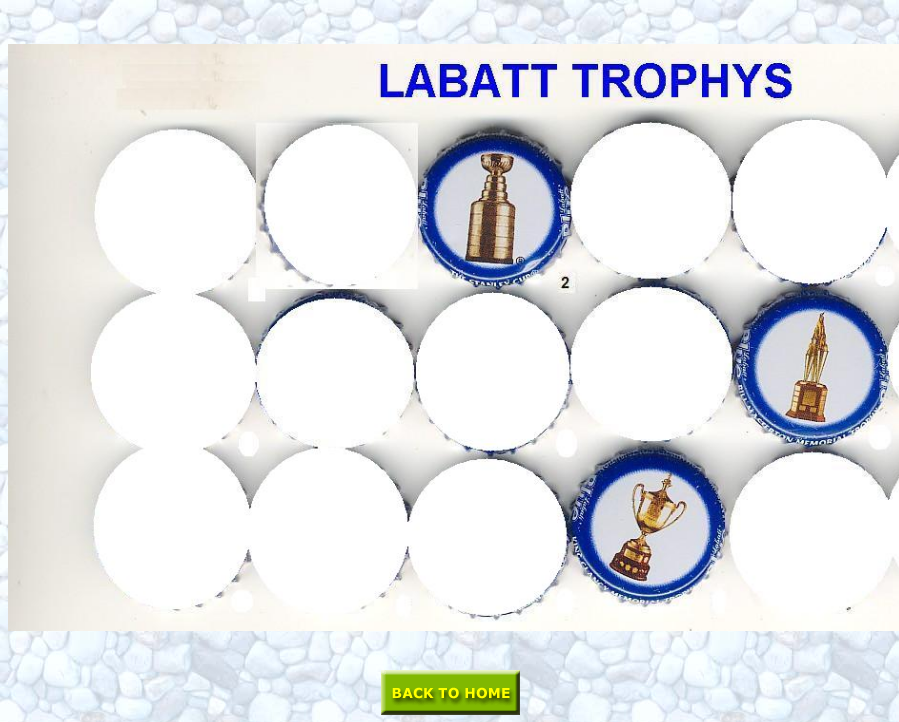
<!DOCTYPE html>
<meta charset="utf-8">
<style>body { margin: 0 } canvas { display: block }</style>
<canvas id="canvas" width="899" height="722"></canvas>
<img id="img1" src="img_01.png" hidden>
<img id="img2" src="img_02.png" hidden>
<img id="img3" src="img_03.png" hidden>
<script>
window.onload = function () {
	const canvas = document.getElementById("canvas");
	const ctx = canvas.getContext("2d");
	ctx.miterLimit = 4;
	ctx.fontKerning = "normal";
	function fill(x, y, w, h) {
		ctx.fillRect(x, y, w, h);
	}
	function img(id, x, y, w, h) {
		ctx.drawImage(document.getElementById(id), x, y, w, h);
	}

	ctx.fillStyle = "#FFFFFF";
	fill(0, 0, 899, 722);
	img("img1", 0, 0, 899, 722);
	img("img2", 8, 44, 891, 587);
	img("img3", 381, 670, 139, 45);
};
</script>
